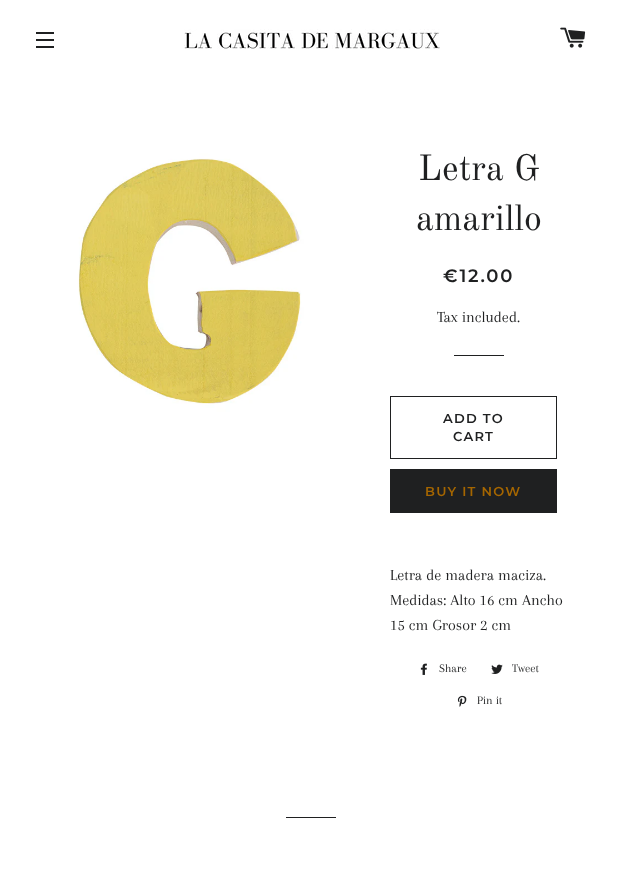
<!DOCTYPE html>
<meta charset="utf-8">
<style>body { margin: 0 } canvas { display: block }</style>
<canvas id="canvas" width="622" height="874"></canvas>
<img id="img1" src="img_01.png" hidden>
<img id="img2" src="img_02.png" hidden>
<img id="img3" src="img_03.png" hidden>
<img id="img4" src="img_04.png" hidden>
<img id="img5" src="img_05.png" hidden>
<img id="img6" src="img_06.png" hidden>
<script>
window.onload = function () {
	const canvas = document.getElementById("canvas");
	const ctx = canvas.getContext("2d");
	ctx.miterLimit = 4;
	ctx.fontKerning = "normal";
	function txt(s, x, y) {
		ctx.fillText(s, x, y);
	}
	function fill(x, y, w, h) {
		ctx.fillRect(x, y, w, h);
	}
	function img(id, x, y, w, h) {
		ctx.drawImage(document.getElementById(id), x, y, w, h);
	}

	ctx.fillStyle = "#FFFFFF";
	fill(0, 0, 622, 874);
	ctx.fillStyle = "#1F2021";
	fill(36, 32, 18, 2);
	fill(36, 39, 18, 2);
	fill(36, 46, 18, 2);
	img("img1", 184, 29, 256, 20);
	img("img2", 560, 27, 26, 21);
	img("img3", 30, 110, 315, 331);
	fill(454, 355, 50, 1);
	ctx.strokeStyle = "#1F2021";
	ctx.strokeRect(390.5, 396.5, 166, 62);
	fill(390, 469, 167, 44);
	img("img4", 420, 663, 7, 12);
	img("img5", 491, 664, 12, 10);
	img("img6", 457, 695, 10, 12);
	fill(286, 817, 50, 1);
	ctx.font = "36px Old Standard TT";
	txt("Letra G", 418, 180);
	txt("amarillo", 416, 230);
	ctx.letterSpacing = "1.75px";
	ctx.font = "600 18px Montserrat";
	txt("€12.00", 443, 282);
	ctx.letterSpacing = "0px";
	ctx.font = "16px Arapey";
	txt("Tax included.", 437, 322);
	ctx.letterSpacing = "1.25px";
	ctx.font = "600 13px Montserrat";
	txt("ADD TO", 443, 423);
	txt("CART", 453, 441);
	ctx.fillStyle = "#A56600";
	txt("BUY IT NOW", 425, 496);
	ctx.letterSpacing = "0px";
	ctx.font = "16px Arapey";
	ctx.fillStyle = "#1F2021";
	txt("Letra de madera maciza.", 390, 580);
	txt("Medidas: Alto 16 cm Ancho", 390, 605);
	txt("15 cm Grosor 2 cm", 390, 630);
	ctx.font = "12px Arapey";
	txt("Share", 439, 672);
	txt("Tweet", 512, 672);
	txt("Pin it", 477, 704);
};
</script>
